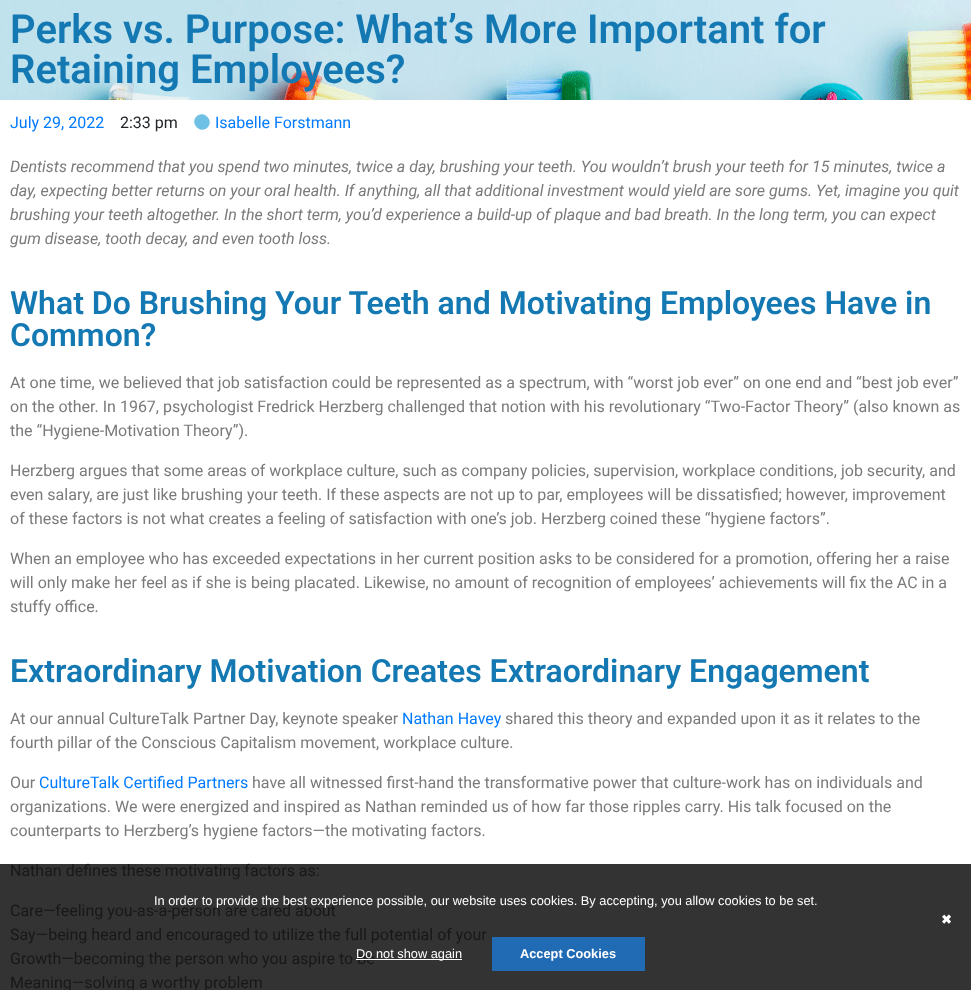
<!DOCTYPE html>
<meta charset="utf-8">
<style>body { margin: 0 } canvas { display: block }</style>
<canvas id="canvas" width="971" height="990"></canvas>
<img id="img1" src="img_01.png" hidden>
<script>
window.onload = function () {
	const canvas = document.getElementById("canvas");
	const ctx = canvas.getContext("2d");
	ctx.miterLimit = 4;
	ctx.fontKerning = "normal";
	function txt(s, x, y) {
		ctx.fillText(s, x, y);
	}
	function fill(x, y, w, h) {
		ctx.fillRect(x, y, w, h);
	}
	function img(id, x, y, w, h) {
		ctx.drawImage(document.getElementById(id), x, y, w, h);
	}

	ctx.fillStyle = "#FFFFFF";
	fill(0, 0, 971, 990);
	ctx.fillStyle = "#333333";
	fill(0, 864, 971, 126);
	img("img1", 0, 0, 971, 100);
	ctx.fillStyle = "#6EC1E4";
	ctx.beginPath();
	ctx.moveTo(196.5, 116.5);
	ctx.bezierCurveTo(203.5, 109.5, 214.5, 120.5, 207.5, 127.5);
	ctx.bezierCurveTo(200.5, 134.5, 189.5, 123.5, 196.5, 116.5);
	ctx.closePath();
	ctx.fill();
	ctx.fillStyle = "#216BB4";
	fill(492, 937, 153, 34);
	ctx.font = "600 40px Roboto";
	ctx.fillStyle = "#1479B3";
	txt("Perks vs. Purpose: What’s More Important for", 10, 43);
	txt("Retaining Employees?", 10, 83);
	ctx.font = "16px Roboto";
	ctx.fillStyle = "#007BFF";
	txt("July 29, 2022", 10, 128);
	ctx.fillStyle = "#212529";
	txt("2:33 pm", 120, 128);
	ctx.fillStyle = "#007BFF";
	txt("Isabelle Forstmann", 215, 128);
	ctx.font = "italic 16px Roboto";
	ctx.fillStyle = "#7A7A7A";
	txt("Dentists recommend that you spend two minutes, twice a day, brushing your teeth. You wouldn’t brush your teeth for 15 minutes, twice a", 10, 172);
	txt("day, expecting better returns on your oral health. If anything, all that additional investment would yield are sore gums. Yet, imagine you quit", 10, 196);
	txt("brushing your teeth altogether. In the short term, you’d experience a build-up of plaque and bad breath. In the long term, you can expect", 10, 220);
	txt("gum disease, tooth decay, and even tooth loss.", 10, 244);
	ctx.font = "600 32px Roboto";
	ctx.fillStyle = "#1479B3";
	txt("What Do Brushing Your Teeth and Motivating Employees Have in", 10, 314);
	txt("Common?", 10, 346);
	ctx.font = "16px Roboto";
	ctx.fillStyle = "#7A7A7A";
	txt("At one time, we believed that job satisfaction could be represented as a spectrum, with “worst job ever” on one end and “best job ever”", 10, 388);
	txt("on the other. In 1967, psychologist Fredrick Herzberg challenged that notion with his revolutionary “Two-Factor Theory” (also known as", 10, 412);
	txt("the “Hygiene-Motivation Theory”).", 10, 436);
	txt("Herzberg argues that some areas of workplace culture, such as company policies, supervision, workplace conditions, job security, and", 10, 476);
	txt("even salary, are just like brushing your teeth. If these aspects are not up to par, employees will be dissatisfied; however, improvement", 10, 500);
	txt("of these factors is not what creates a feeling of satisfaction with one’s job. Herzberg coined these “hygiene factors”.", 10, 524);
	txt("When an employee who has exceeded expectations in her current position asks to be considered for a promotion, offering her a raise", 10, 564);
	txt("will only make her feel as if she is being placated. Likewise, no amount of recognition of employees’ achievements will fix the AC in a", 10, 588);
	txt("stuffy office.", 10, 612);
	ctx.font = "600 32px Roboto";
	ctx.fillStyle = "#1479B3";
	txt("Extraordinary Motivation Creates Extraordinary Engagement", 10, 682);
	ctx.font = "16px Roboto";
	ctx.fillStyle = "#7A7A7A";
	txt("At our annual CultureTalk Partner Day, keynote speaker", 10, 724);
	ctx.fillStyle = "#007BFF";
	txt("Nathan Havey", 402, 724);
	ctx.fillStyle = "#7A7A7A";
	txt("shared this theory and expanded upon it as it relates to the", 505, 724);
	txt("fourth pillar of the Conscious Capitalism movement, workplace culture.", 10, 748);
	txt("Our", 10, 788);
	ctx.fillStyle = "#007BFF";
	txt("CultureTalk Certified Partners", 39, 788);
	ctx.fillStyle = "#7A7A7A";
	txt("have all witnessed first-hand the transformative power that culture-work has on individuals and", 252, 788);
	txt("organizations. We were energized and inspired as Nathan reminded us of how far those ripples carry. His talk focused on the", 10, 812);
	txt("counterparts to Herzberg’s hygiene factors—the motivating factors.", 10, 836);
	ctx.fillStyle = "#181818";
	txt("Nathan defines these motivating factors as:", 10, 876);
	txt("Care—feeling you-as-a-person are cared about", 10, 916);
	txt("Say—being heard and encouraged to utilize the full potential of your", 10, 940);
	txt("Growth—becoming the person who you aspire to be", 10, 964);
	txt("Meaning—solving a worthy problem", 10, 988);
	ctx.font = "12.8px Liberation Sans";
	ctx.fillStyle = "#FFFFFF";
	txt("In order to provide the best experience possible, our website uses cookies. By accepting, you allow cookies to be set.", 154, 905);
	ctx.font = "bold 12.8px DejaVu Sans";
	txt("✖", 941, 924);
	fill(356, 959, 106, 1);
	ctx.font = "12.8px Liberation Sans";
	txt("Do not show again", 356, 958);
	ctx.font = "bold 12.8px Liberation Sans";
	txt("Accept Cookies", 520, 958);
};
</script>
